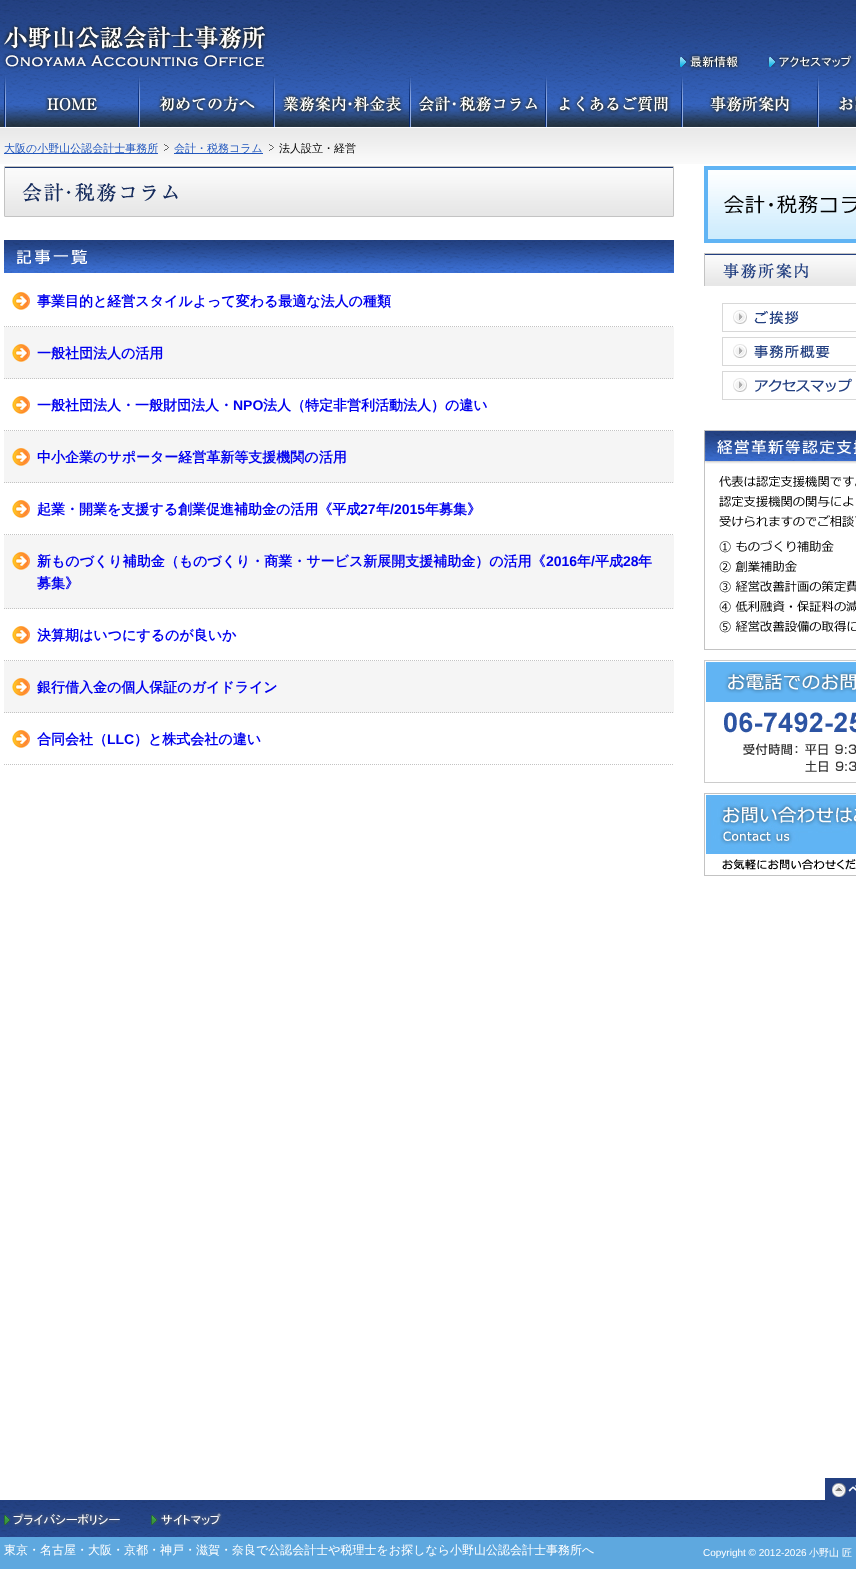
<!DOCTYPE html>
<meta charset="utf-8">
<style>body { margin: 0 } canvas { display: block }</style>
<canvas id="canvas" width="856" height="1569"></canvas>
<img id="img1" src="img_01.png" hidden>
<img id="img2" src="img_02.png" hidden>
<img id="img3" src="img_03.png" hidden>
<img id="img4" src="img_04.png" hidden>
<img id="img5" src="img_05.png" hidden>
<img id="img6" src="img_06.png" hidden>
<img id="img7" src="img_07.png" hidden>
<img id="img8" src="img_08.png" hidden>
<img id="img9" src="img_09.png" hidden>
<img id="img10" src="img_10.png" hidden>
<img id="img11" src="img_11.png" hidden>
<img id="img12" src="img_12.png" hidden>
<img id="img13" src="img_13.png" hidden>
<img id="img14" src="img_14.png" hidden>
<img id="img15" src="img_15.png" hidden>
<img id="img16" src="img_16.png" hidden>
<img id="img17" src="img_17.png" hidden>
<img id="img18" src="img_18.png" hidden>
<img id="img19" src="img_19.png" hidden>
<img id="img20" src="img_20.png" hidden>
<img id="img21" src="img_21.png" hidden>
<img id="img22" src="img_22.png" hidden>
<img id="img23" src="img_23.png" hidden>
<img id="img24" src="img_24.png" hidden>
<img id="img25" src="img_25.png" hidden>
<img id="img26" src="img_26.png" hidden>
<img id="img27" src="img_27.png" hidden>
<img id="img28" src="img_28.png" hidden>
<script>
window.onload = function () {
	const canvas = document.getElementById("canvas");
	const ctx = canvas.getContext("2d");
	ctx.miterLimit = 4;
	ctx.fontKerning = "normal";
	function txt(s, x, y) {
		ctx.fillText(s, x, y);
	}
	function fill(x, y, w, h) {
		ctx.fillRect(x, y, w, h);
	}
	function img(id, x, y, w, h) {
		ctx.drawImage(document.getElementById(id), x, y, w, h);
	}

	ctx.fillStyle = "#FFFFFF";
	fill(0, 0, 856, 1569);
	img("img1", 0, 0, 856, 164);
	img("img2", 0, 24, 274, 46);
	img("img3", 678, 53, 64, 17);
	img("img4", 767, 53, 88, 17);
	img("img5", 4, 70, 135, 57);
	img("img6", 139, 70, 135, 57);
	img("img7", 274, 70, 136, 57);
	img("img8", 410, 70, 136, 57);
	img("img9", 546, 70, 136, 57);
	img("img10", 682, 70, 136, 57);
	img("img11", 818, 70, 38, 57);
	ctx.fillStyle = "#2358BE";
	fill(4, 153, 154, 1);
	img("img12", 164, 144, 5, 7);
	fill(174, 153, 89, 1);
	img("img12", 269, 144, 5, 7);
	img("img13", 4, 166, 670, 51);
	img("img14", 4, 240, 670, 33);
	img("img15", 12, 292, 18, 18);
	ctx.beginPath();
	ctx.moveTo(4, 326.5);
	ctx.lineTo(674, 326.5);
	ctx.strokeStyle = "#C3C3C3";
	ctx.setLineDash([1, 1]);
	ctx.stroke();
	ctx.fillStyle = "#F5F5F5";
	fill(4, 327, 670, 52);
	img("img16", 12, 344, 18, 18);
	ctx.beginPath();
	ctx.moveTo(4, 378.5);
	ctx.lineTo(674, 378.5);
	ctx.stroke();
	img("img15", 12, 396, 18, 18);
	ctx.beginPath();
	ctx.moveTo(4, 430.5);
	ctx.lineTo(674, 430.5);
	ctx.stroke();
	fill(4, 431, 670, 52);
	img("img16", 12, 448, 18, 18);
	ctx.beginPath();
	ctx.moveTo(4, 482.5);
	ctx.lineTo(674, 482.5);
	ctx.stroke();
	img("img15", 12, 500, 18, 18);
	ctx.beginPath();
	ctx.moveTo(4, 534.5);
	ctx.lineTo(674, 534.5);
	ctx.stroke();
	fill(4, 535, 670, 74);
	img("img16", 12, 552, 18, 18);
	ctx.beginPath();
	ctx.moveTo(4, 608.5);
	ctx.lineTo(674, 608.5);
	ctx.stroke();
	img("img15", 12, 626, 18, 18);
	ctx.beginPath();
	ctx.moveTo(4, 660.5);
	ctx.lineTo(674, 660.5);
	ctx.stroke();
	fill(4, 661, 670, 52);
	img("img16", 12, 678, 18, 18);
	ctx.beginPath();
	ctx.moveTo(4, 712.5);
	ctx.lineTo(674, 712.5);
	ctx.stroke();
	img("img15", 12, 730, 18, 18);
	ctx.beginPath();
	ctx.moveTo(4, 764.5);
	ctx.lineTo(674, 764.5);
	ctx.stroke();
	img("img17", 704, 166, 152, 77);
	img("img18", 704, 253, 152, 33);
	img("img19", 722, 303, 134, 29);
	img("img20", 722, 337, 134, 29);
	img("img21", 722, 371, 134, 29);
	img("img22", 704, 430, 152, 220);
	img("img23", 704, 660, 152, 123);
	img("img24", 704, 793, 152, 83);
	img("img25", 0, 1500, 856, 69);
	ctx.fillStyle = "#234081";
	fill(825, 1478, 31, 22);
	img("img26", 832, 1483, 24, 14);
	img("img27", 4, 1512, 116, 16);
	img("img28", 151, 1512, 71, 15);
	ctx.font = "500 11px WenQuanYi Zen Hei";
	ctx.fillStyle = "#2358BE";
	txt("大阪の小野山公認会計士事務所", 4, 152);
	txt("会計・税務コラム", 174, 152);
	ctx.fillStyle = "#000000";
	txt("法人設立・経営", 279, 152);
	ctx.font = "bold 14px WenQuanYi Zen Hei";
	ctx.fillStyle = "#0000EE";
	txt("事業目的と経営スタイルよって変わる最適な法人の種類", 37, 306);
	txt("一般社団法人の活用", 37, 358);
	txt("一般社団法人・一般財団法人・", 37, 410);
	ctx.font = "bold 14px Liberation Sans";
	txt("NPO", 233, 410);
	ctx.font = "bold 14px WenQuanYi Zen Hei";
	txt("法人（特定非営利活動法人）の違い", 263, 410);
	txt("中小企業のサポーター経営革新等支援機関の活用", 37, 462);
	txt("起業・開業を支援する創業促進補助金の活用《平成", 37, 514);
	ctx.font = "bold 14px Liberation Sans";
	txt("27", 360, 514);
	ctx.font = "bold 14px WenQuanYi Zen Hei";
	txt("年", 376, 514);
	ctx.font = "bold 14px Liberation Sans";
	txt("/2015", 390, 514);
	ctx.font = "bold 14px WenQuanYi Zen Hei";
	txt("年募集》", 425, 514);
	txt("新ものづくり補助金（ものづくり・商業・サービス新展開支援補助金）の活用《", 37, 566);
	ctx.font = "bold 14px Liberation Sans";
	txt("2016", 546, 566);
	ctx.font = "bold 14px WenQuanYi Zen Hei";
	txt("年", 577, 566);
	ctx.font = "bold 14px Liberation Sans";
	txt("/", 591, 566);
	ctx.font = "bold 14px WenQuanYi Zen Hei";
	txt("平成", 595, 566);
	ctx.font = "bold 14px Liberation Sans";
	txt("28", 623, 566);
	ctx.font = "bold 14px WenQuanYi Zen Hei";
	txt("年", 638, 566);
	txt("募集》", 37, 588);
	txt("決算期はいつにするのが良いか", 37, 640);
	txt("銀行借入金の個人保証のガイドライン", 37, 692);
	txt("合同会社（", 37, 744);
	ctx.font = "bold 14px Liberation Sans";
	txt("LLC", 107, 744);
	ctx.font = "bold 14px WenQuanYi Zen Hei";
	txt("）と株式会社の違い", 134, 744);
	ctx.font = "500 12px WenQuanYi Zen Hei";
	ctx.fillStyle = "#FFFFFF";
	txt("東京・名古屋・大阪・京都・神戸・滋賀・奈良で公認会計士や税理士をお探しなら小野山公認会計士事務所へ", 4, 1554);
	ctx.font = "10px Liberation Sans";
	txt("Copyright © 2012-2026", 703, 1556);
	ctx.font = "500 10px WenQuanYi Zen Hei";
	txt("小野山 匠", 809, 1556);
};
</script>
